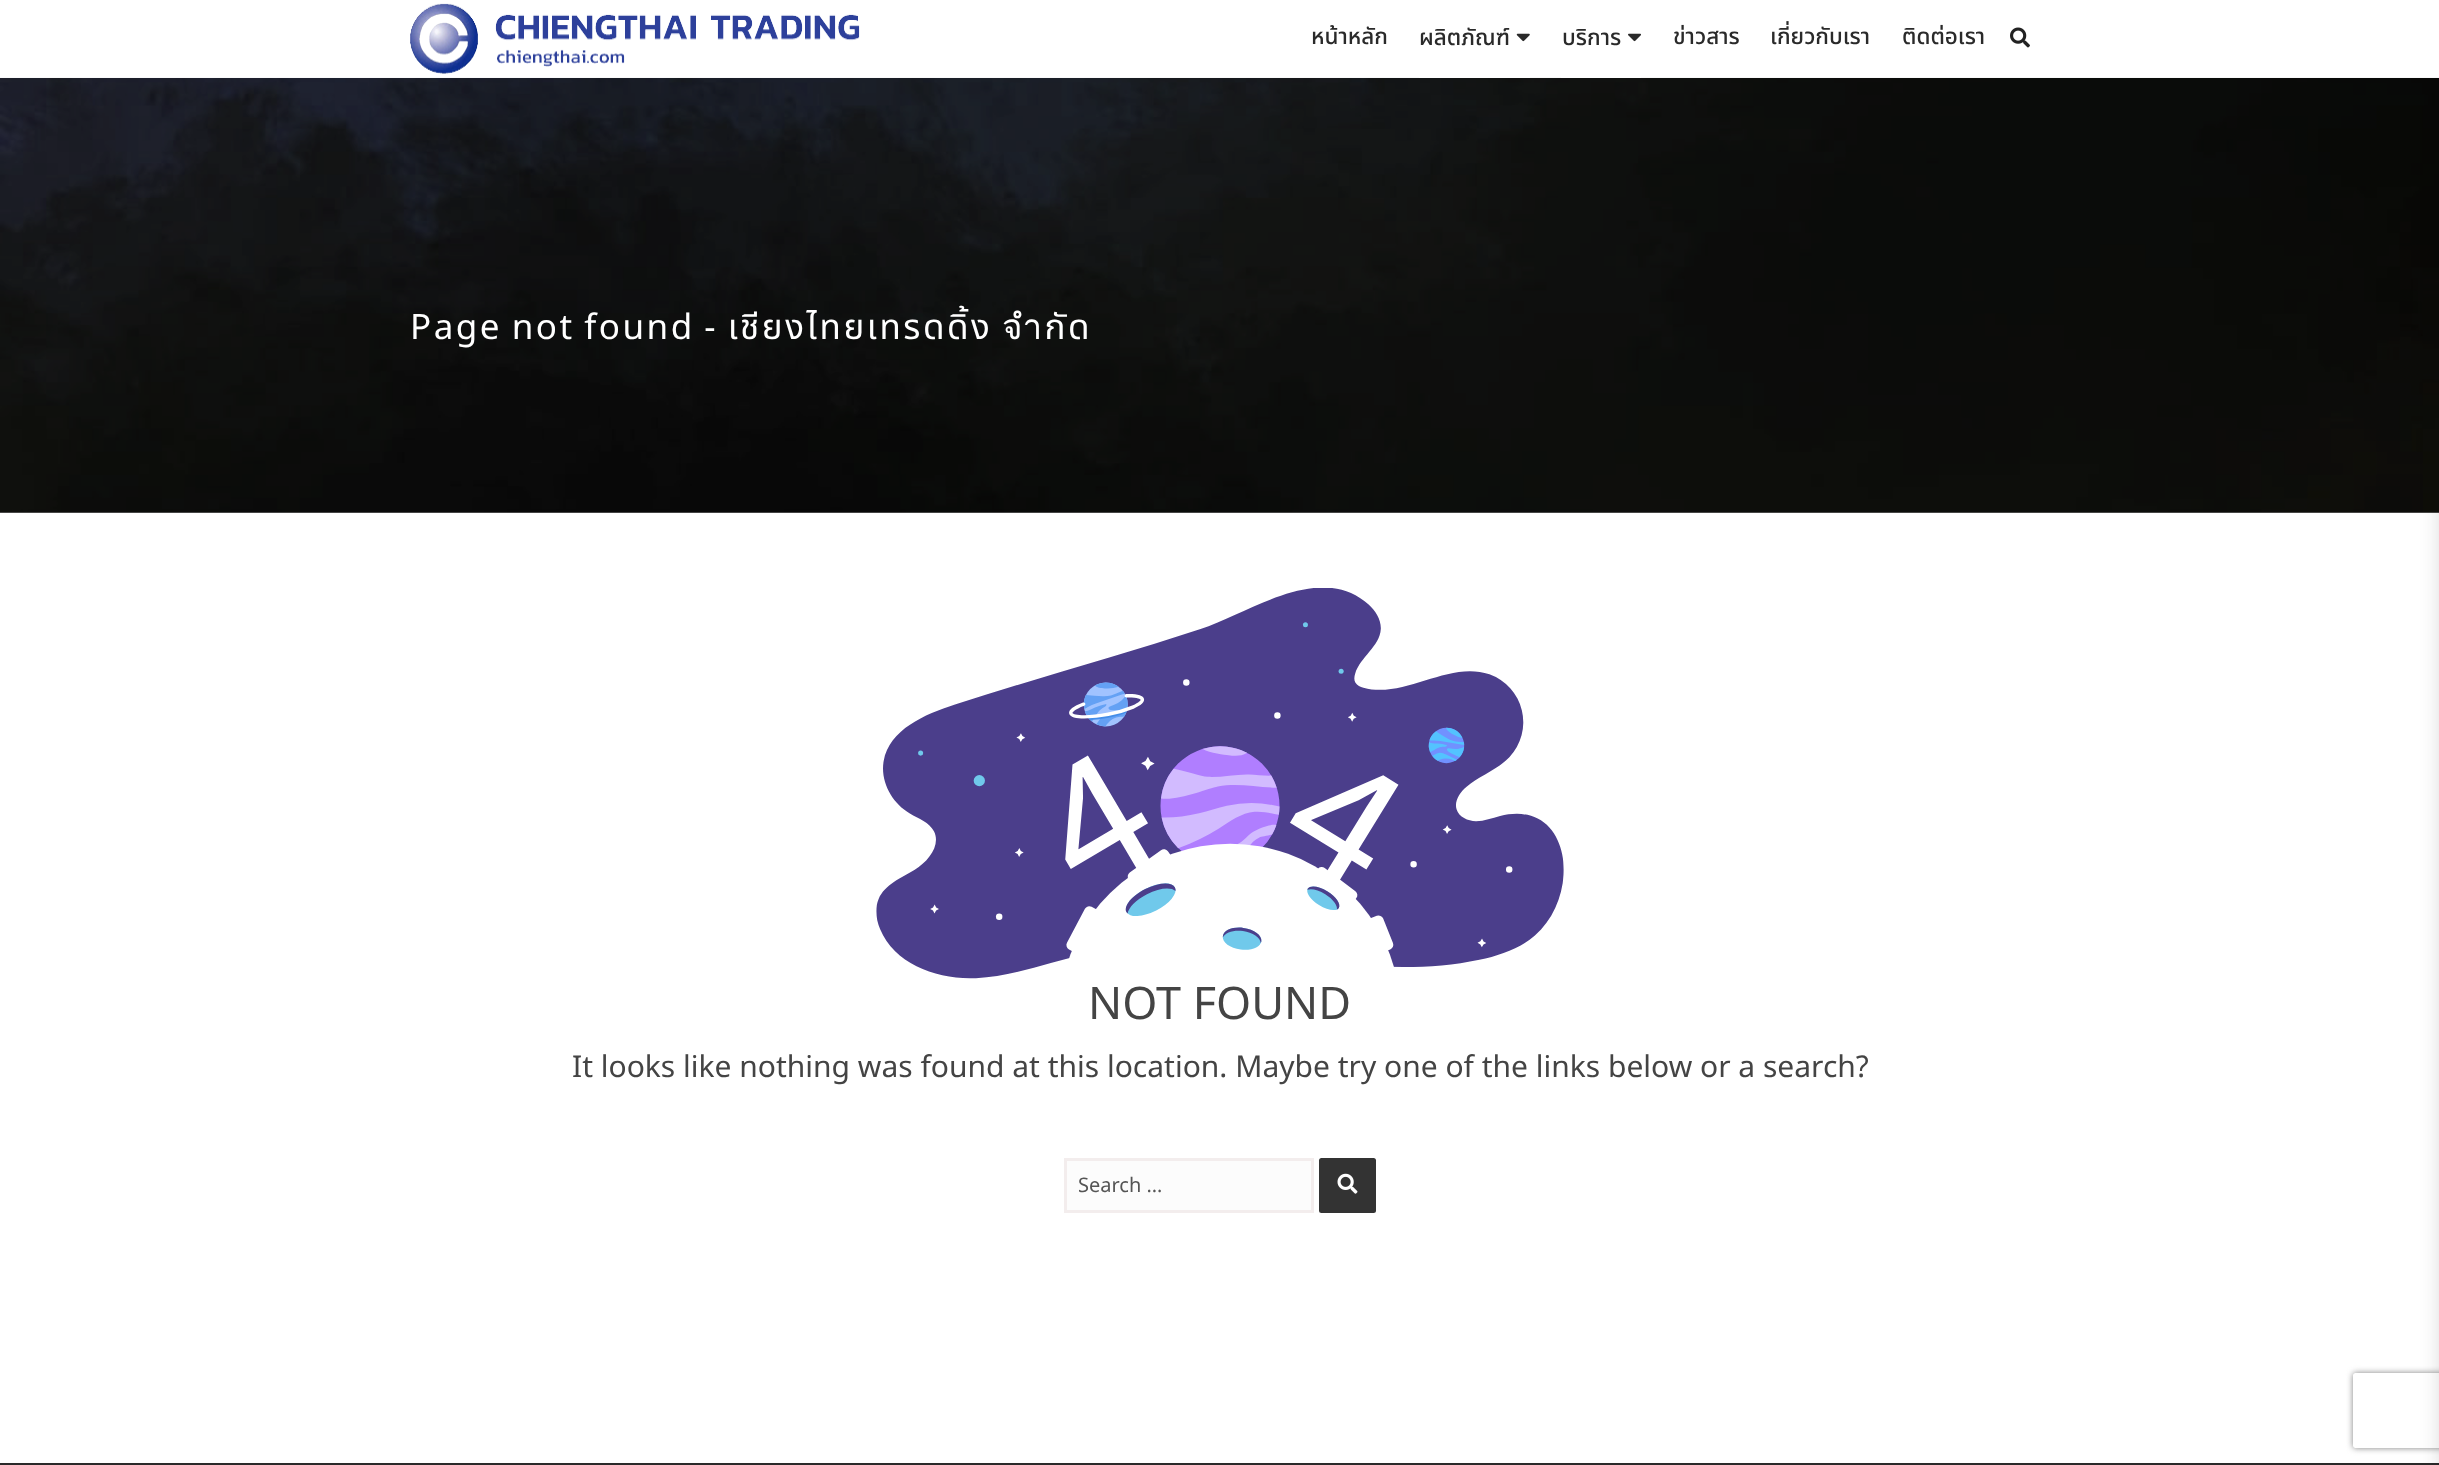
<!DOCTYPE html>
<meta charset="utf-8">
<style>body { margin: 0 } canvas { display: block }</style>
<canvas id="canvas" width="2439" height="1465"></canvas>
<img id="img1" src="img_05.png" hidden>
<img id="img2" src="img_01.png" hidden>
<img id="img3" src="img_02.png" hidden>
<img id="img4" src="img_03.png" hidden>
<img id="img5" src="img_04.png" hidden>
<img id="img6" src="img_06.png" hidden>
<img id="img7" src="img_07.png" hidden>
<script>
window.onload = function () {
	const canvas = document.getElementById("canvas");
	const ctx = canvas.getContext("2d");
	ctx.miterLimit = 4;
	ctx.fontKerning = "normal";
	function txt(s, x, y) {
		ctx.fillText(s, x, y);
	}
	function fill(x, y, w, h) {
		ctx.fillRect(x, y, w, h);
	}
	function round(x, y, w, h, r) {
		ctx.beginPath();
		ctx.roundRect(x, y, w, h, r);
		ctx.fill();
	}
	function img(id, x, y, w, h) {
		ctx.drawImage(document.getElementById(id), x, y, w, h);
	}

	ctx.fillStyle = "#FFFFFF";
	fill(0, 0, 2439, 1465);
	ctx.fillStyle = "#808080";
	fill(0, 512, 2439, 1);
	img("img1", 0, 77, 2439, 436);
	ctx.fillStyle = "#2A2A2A";
	fill(0, 1463, 2439, 2);
	ctx.fillStyle = "rgba(0, 0, 0, 0.15)";
	ctx.filter = "blur(10px)";
	ctx.beginPath();
	ctx.rect(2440, 10, 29, 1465);
	ctx.fill();
	ctx.filter = "none";
	ctx.fillStyle = "rgba(255, 255, 255, 0.95)";
	fill(0, 0, 2439, 78);
	img("img2", 410, 3, 450, 71);
	ctx.fillStyle = "#FFFFFF";
	fill(1419, 77, 111, 1);
	img("img3", 1516, 33, 14, 9);
	fill(1561, 77, 80, 1);
	img("img4", 1628, 33, 13, 9);
	img("img5", 2010, 27, 20, 21);
	img("img6", 876, 588, 688, 391);
	ctx.fillStyle = "#FCFCFC";
	ctx.beginPath();
	ctx.rect(1065.5, 1159.5, 247, 52);
	ctx.fill();
	ctx.strokeStyle = "#F3EDED";
	ctx.lineWidth = 3;
	ctx.stroke();
	ctx.fillStyle = "#333333";
	round(1319, 1158, 57, 55, 2.5);
	img("img7", 1337, 1173, 21, 21);
	ctx.save();
	ctx.beginPath();
	ctx.moveTo(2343, 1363);
	ctx.lineTo(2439, 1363);
	ctx.lineTo(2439, 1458);
	ctx.lineTo(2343, 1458);
	ctx.closePath();
	ctx.moveTo(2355.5, 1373);
	ctx.lineTo(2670.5, 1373);
	ctx.bezierCurveTo(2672, 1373, 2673, 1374, 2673, 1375.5);
	ctx.lineTo(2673, 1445.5);
	ctx.bezierCurveTo(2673, 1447, 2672, 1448, 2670.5, 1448);
	ctx.lineTo(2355.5, 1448);
	ctx.bezierCurveTo(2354, 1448, 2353, 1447, 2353, 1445.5);
	ctx.lineTo(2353, 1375.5);
	ctx.bezierCurveTo(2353, 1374, 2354, 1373, 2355.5, 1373);
	ctx.closePath();
	ctx.clip("evenodd");
	ctx.fillStyle = "#808080";
	ctx.filter = "blur(3px)";
	ctx.beginPath();
	ctx.roundRect(2353, 1373, 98, 75, 2.5);
	ctx.fill();
	ctx.filter = "none";
	ctx.restore();
	ctx.font = "500 22.5px Noto Sans Thai";
	ctx.fillStyle = "#2A2A2A";
	txt("หน้าหลัก", 1311, 44);
	txt("ผลิตภัณฑ์", 1419, 45);
	txt("บริการ", 1562, 45);
	txt("ข่าวสาร", 1673, 44);
	txt("เกี่ยวกับเรา", 1770, 44);
	txt("ติดต่อเรา", 1902, 44);
	ctx.letterSpacing = "2.5px";
	ctx.wordSpacing = "-2px";
	ctx.font = "35px Noto Sans Thai";
	ctx.fillStyle = "#FFFFFF";
	txt("Page not found - เชียงไทยเทรดดิ้ง จำกัด", 410, 339);
	ctx.letterSpacing = "0px";
	ctx.wordSpacing = "0px";
	ctx.font = "45px Noto Sans Thai";
	ctx.fillStyle = "#444444";
	txt("NOT FOUND", 1088, 1019);
	ctx.font = "30px Noto Sans Thai";
	txt("It looks like nothing was found at this location. Maybe try one of the links below or a search?", 572, 1077);
	ctx.font = "20px Noto Sans Thai";
	ctx.fillStyle = "#555555";
	txt("Search …", 1078, 1192);
};
</script>
